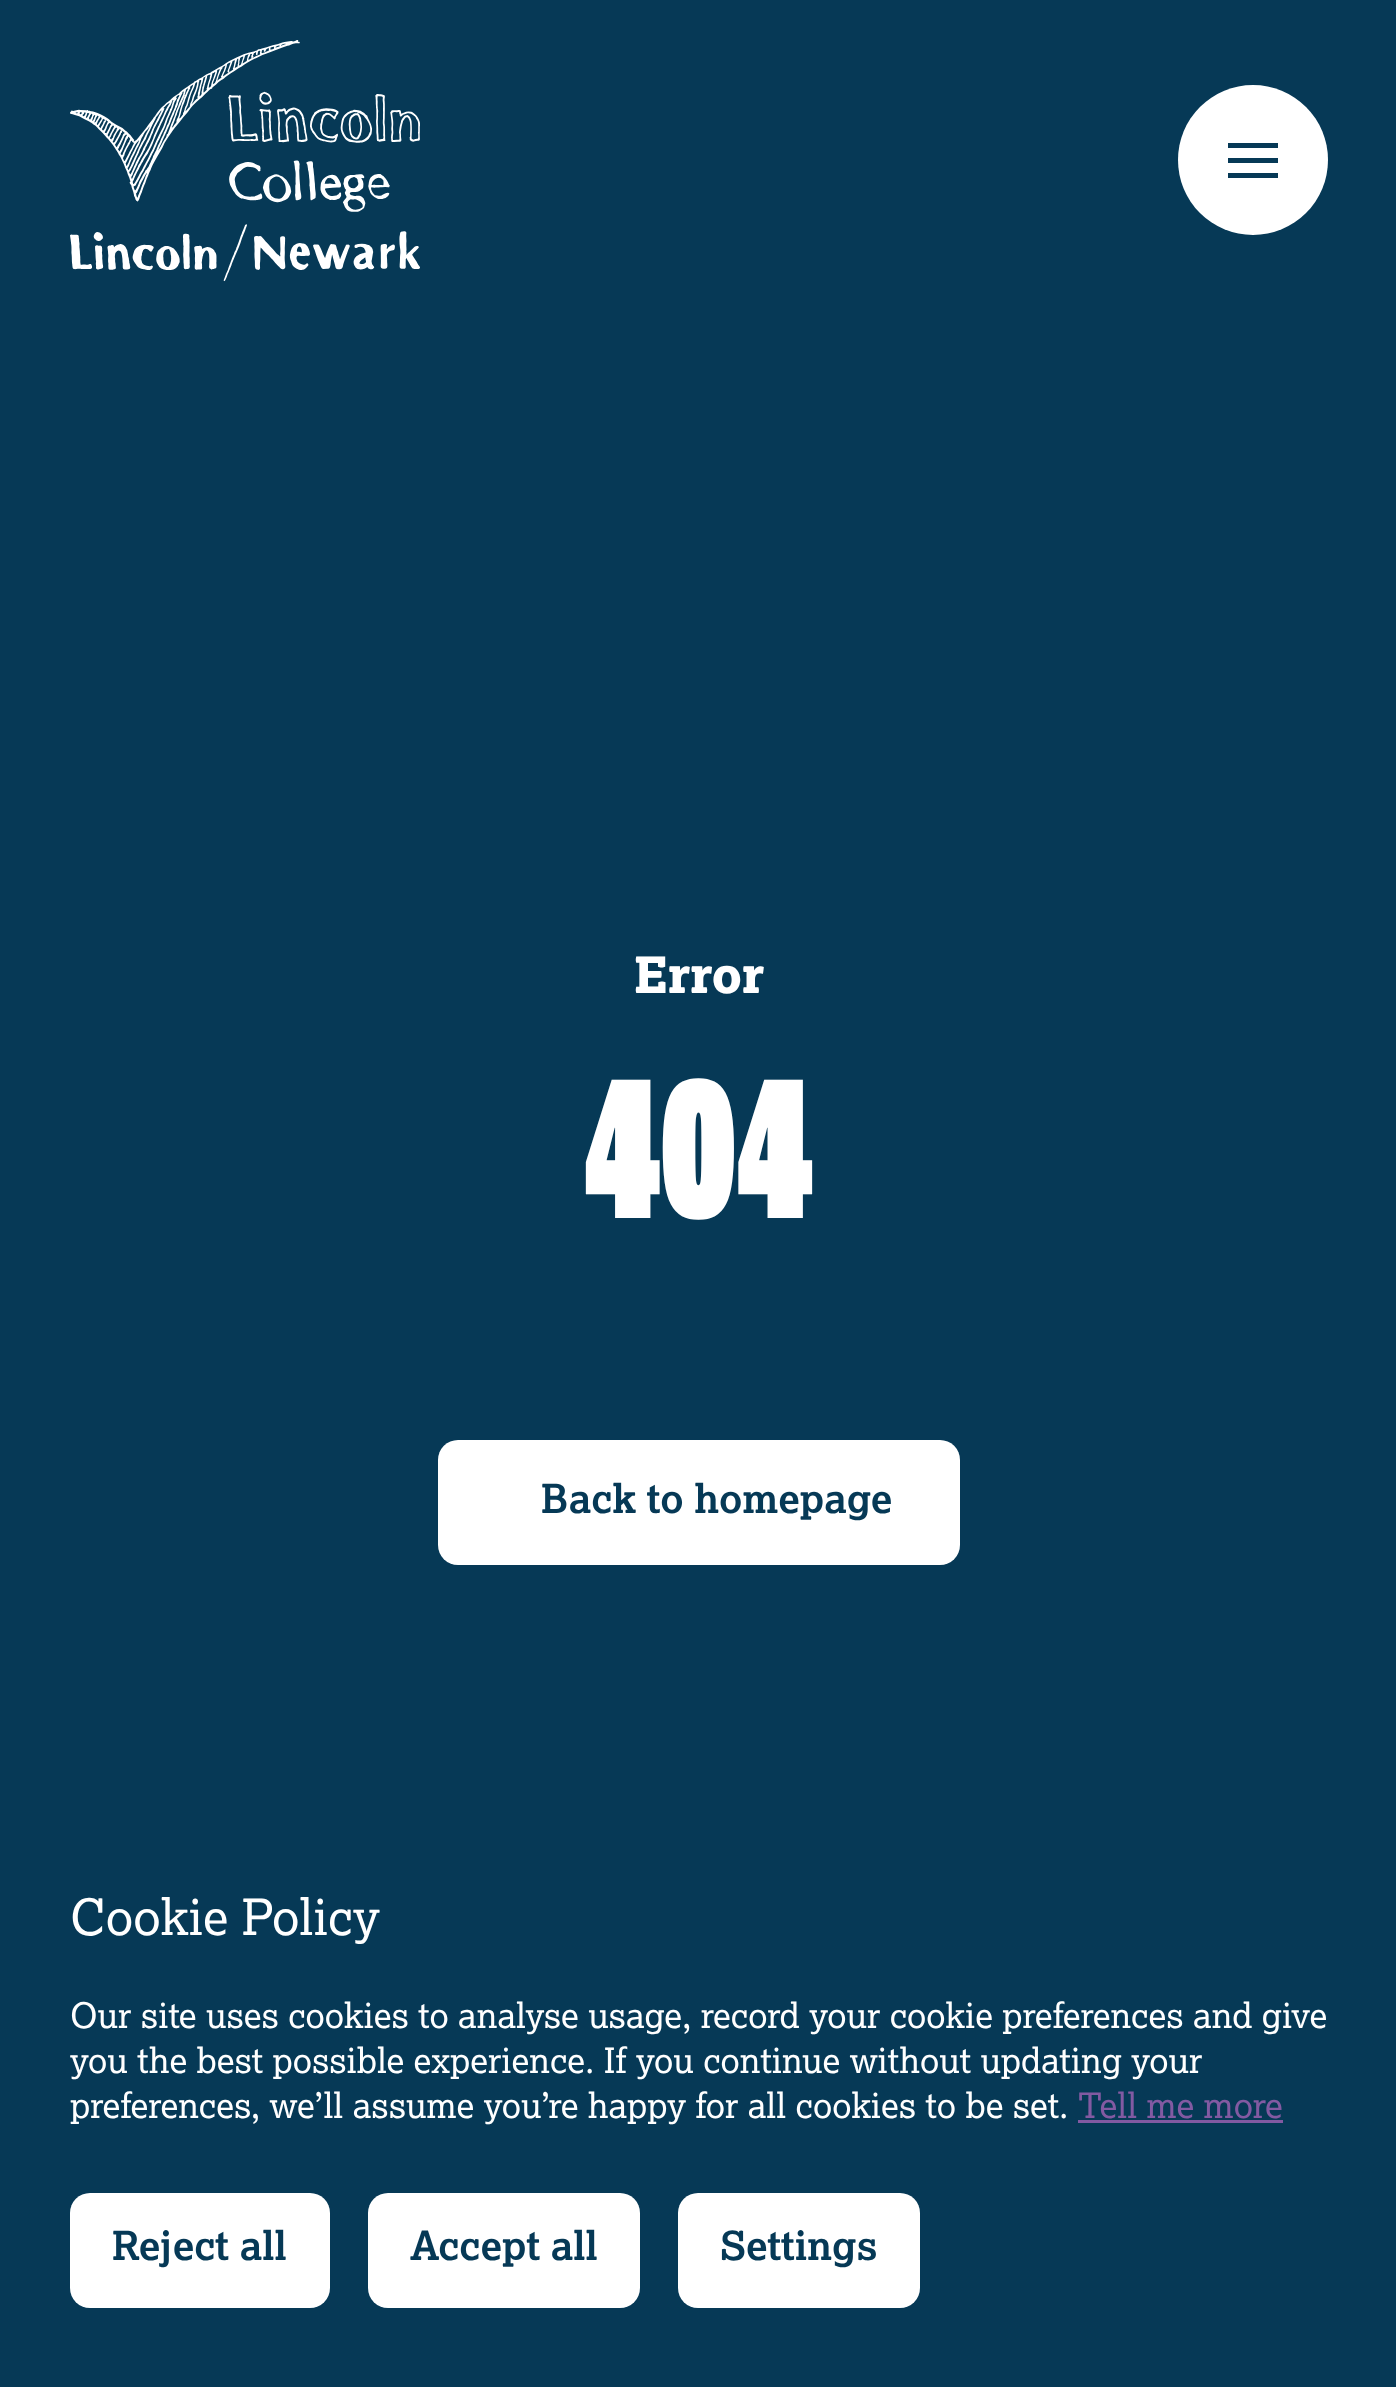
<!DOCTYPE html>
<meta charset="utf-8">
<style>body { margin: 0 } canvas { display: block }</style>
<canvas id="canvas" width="1396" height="2387"></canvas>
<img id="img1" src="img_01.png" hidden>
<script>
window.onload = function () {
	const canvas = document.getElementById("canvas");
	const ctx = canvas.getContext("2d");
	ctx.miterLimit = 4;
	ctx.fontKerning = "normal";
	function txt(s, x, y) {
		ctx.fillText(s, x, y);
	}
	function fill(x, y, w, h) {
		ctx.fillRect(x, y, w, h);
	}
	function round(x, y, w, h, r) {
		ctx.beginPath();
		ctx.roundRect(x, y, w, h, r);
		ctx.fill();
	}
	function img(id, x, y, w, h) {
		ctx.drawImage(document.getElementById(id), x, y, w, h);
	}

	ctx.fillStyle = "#063956";
	fill(0, 0, 1396, 2387);
	img("img1", 70, 40, 350, 242);
	ctx.fillStyle = "#FFFFFF";
	ctx.beginPath();
	ctx.arc(1253, 160, 75, 0, Math.PI * 2);
	ctx.fill();
	ctx.fillStyle = "#063956";
	fill(1228, 143, 50, 5);
	fill(1228, 158, 50, 5);
	fill(1228, 173, 50, 5);
	ctx.fillStyle = "#FFFFFF";
	round(438, 1440, 522, 125, 20);
	ctx.fillStyle = "#825AA2";
	fill(1078, 2120, 205, 3);
	ctx.fillStyle = "#FFFFFF";
	round(70, 2193, 260, 115, 20);
	round(368, 2193, 272, 115, 20);
	round(678, 2193, 242, 115, 20);
	ctx.font = "bold 50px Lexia";
	txt("Error", 634, 993);
	ctx.font = "900 210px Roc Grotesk";
	txt("404", 584, 1218);
	ctx.font = "bold 40px 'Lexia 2'";
	ctx.fillStyle = "#063956";
	txt("Back to homepage", 541, 1513);
	ctx.font = "50px Lexia";
	ctx.fillStyle = "#FFFFFF";
	txt("Cookie Policy", 70, 1935);
	ctx.font = "35px Lexia";
	txt("Our site uses cookies to analyse usage, record your cookie preferences and give", 70, 2028);
	txt("you the best possible experience. If you continue without updating your", 70, 2073);
	txt("preferences, we’ll assume you’re happy for all cookies to be set.", 70, 2118);
	ctx.fillStyle = "#825AA2";
	txt("Tell me more", 1078, 2118);
	ctx.font = "bold 40px 'Lexia 2'";
	ctx.fillStyle = "#063956";
	txt("Reject all", 112, 2260);
	txt("Accept all", 410, 2260);
	txt("Settings", 720, 2260);
};
</script>
